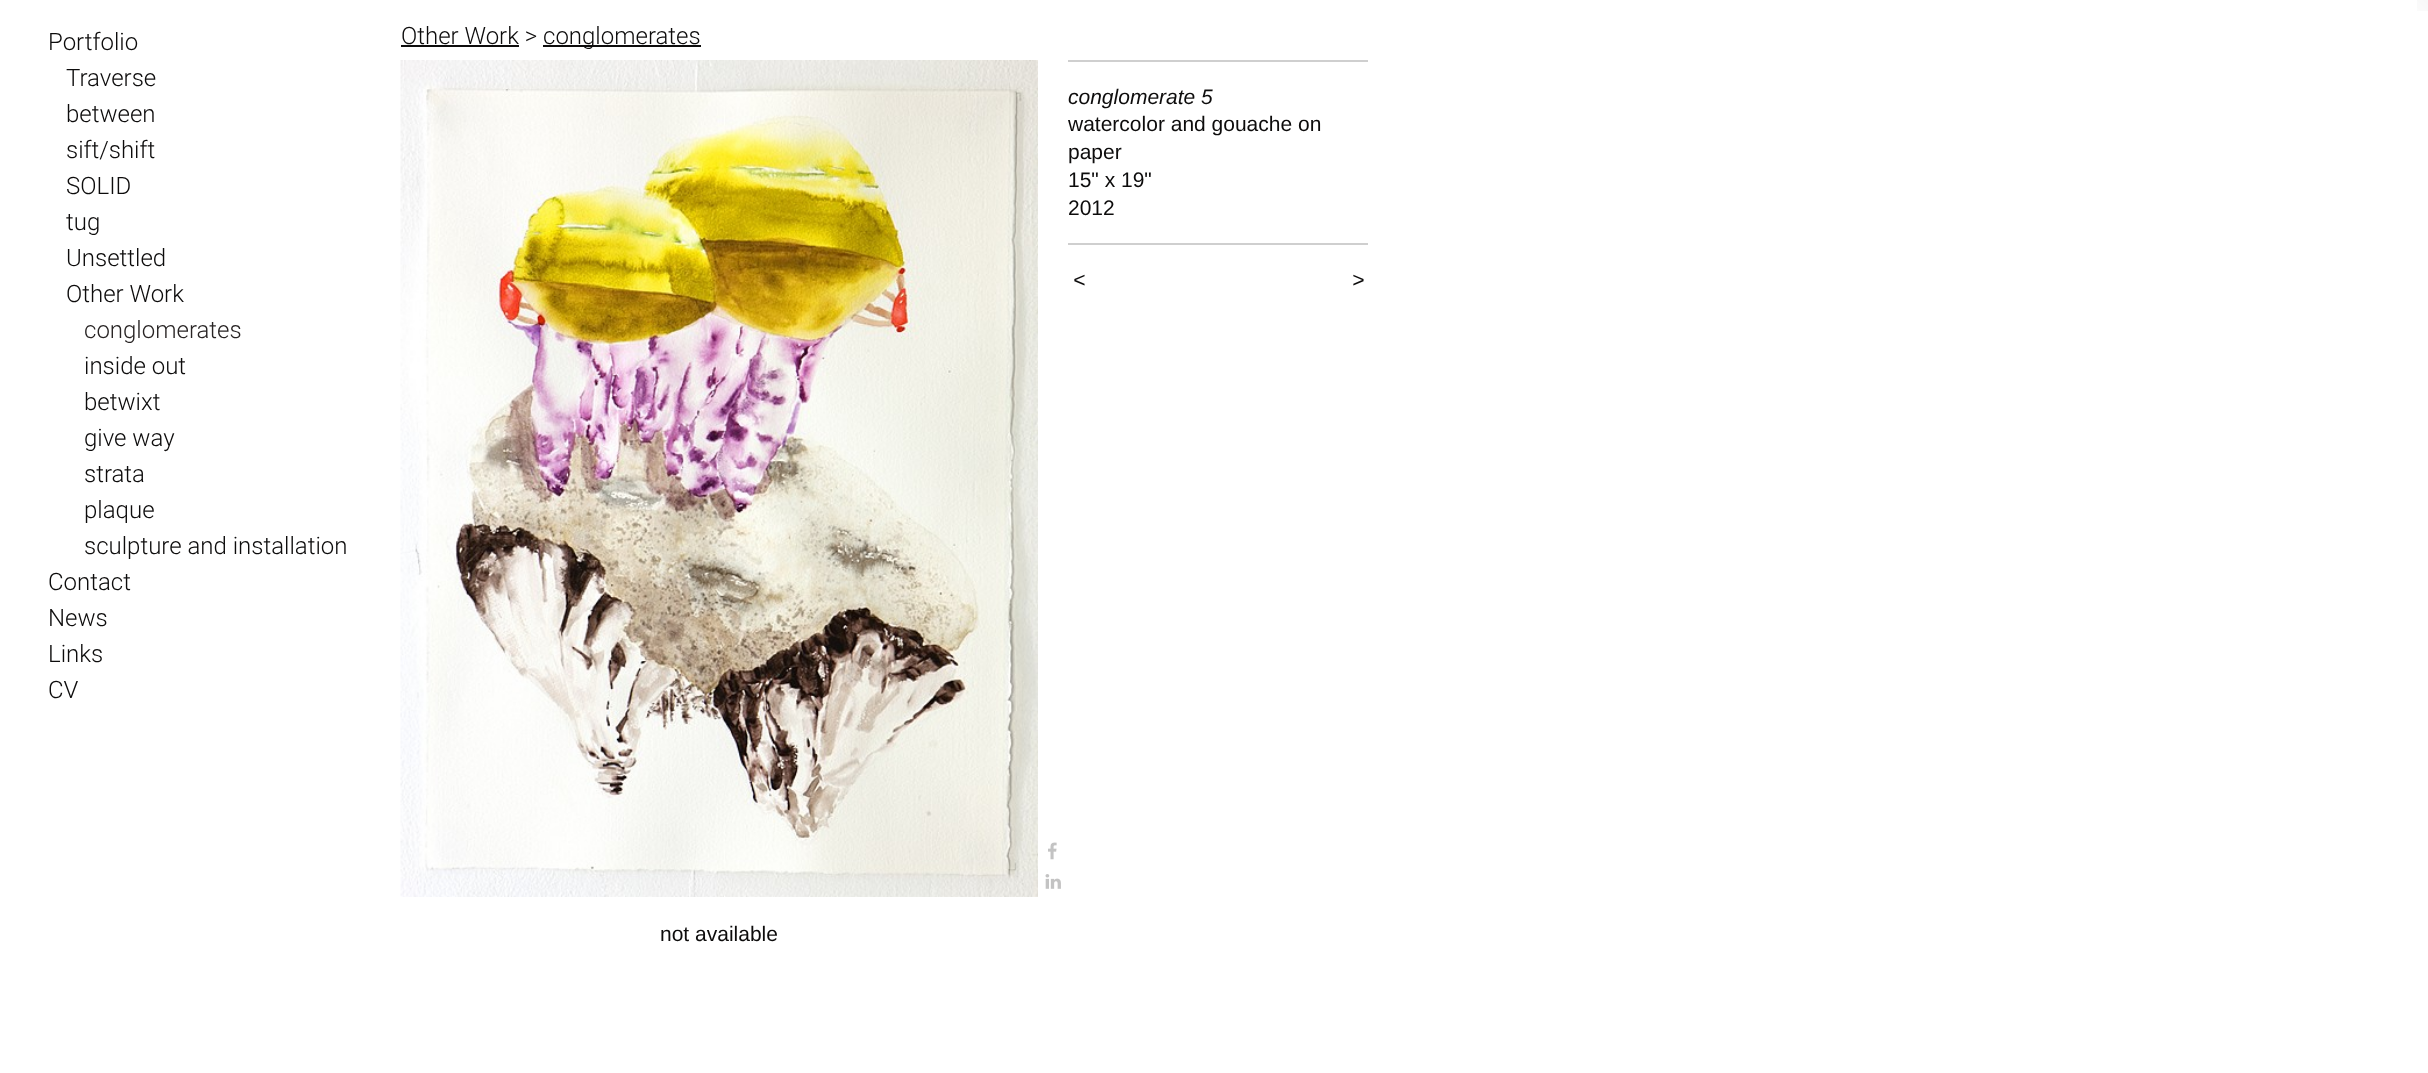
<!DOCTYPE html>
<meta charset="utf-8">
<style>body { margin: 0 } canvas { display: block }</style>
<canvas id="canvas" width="2428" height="1073"></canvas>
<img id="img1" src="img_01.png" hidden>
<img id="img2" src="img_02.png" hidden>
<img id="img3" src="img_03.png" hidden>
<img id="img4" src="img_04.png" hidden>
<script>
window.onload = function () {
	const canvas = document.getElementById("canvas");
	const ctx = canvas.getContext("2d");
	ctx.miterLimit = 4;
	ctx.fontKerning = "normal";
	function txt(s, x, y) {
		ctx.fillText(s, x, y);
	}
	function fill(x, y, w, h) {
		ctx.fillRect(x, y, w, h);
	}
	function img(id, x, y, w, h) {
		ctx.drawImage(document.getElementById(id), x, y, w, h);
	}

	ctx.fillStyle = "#FFFFFF";
	fill(0, 0, 2428, 1073);
	img("img1", 2417, 0, 11, 11);
	ctx.fillStyle = "#0D0C0C";
	fill(401, 45, 118, 2);
	fill(543, 45, 158, 2);
	img("img2", 400, 60, 638, 837);
	img("img3", 1048, 842, 9, 18);
	img("img4", 1045, 874, 16, 15);
	ctx.fillStyle = "#CFCFCF";
	fill(1068, 60, 300, 2);
	fill(1068, 243, 300, 2);
	ctx.font = "300 24px Roboto";
	ctx.fillStyle = "#0D0C0C";
	txt("Portfolio", 48, 50);
	txt("Traverse", 66, 86);
	txt("between", 66, 122);
	txt("sift/shift", 66, 158);
	txt("SOLID", 66, 194);
	txt("tug", 66, 230);
	txt("Unsettled", 66, 266);
	txt("Other Work", 66, 302);
	ctx.fillStyle = "#282424";
	txt("conglomerates", 84, 338);
	ctx.fillStyle = "#0D0C0C";
	txt("inside out", 84, 374);
	txt("betwixt", 84, 410);
	txt("give way", 84, 446);
	txt("strata", 84, 482);
	txt("plaque", 84, 518);
	txt("sculpture and installation", 84, 554);
	txt("Contact", 48, 590);
	txt("News", 48, 626);
	txt("Links", 48, 662);
	txt("CV", 48, 698);
	txt("Other Work >", 401, 44);
	txt("conglomerates", 543, 44);
	ctx.font = "italic 21px Liberation Sans";
	txt("conglomerate 5", 1068, 104);
	ctx.font = "21px Liberation Sans";
	txt("watercolor and gouache on", 1068, 131);
	txt("paper", 1068, 159);
	txt("15\" x 19\"", 1068, 187);
	txt("2012", 1068, 215);
	ctx.letterSpacing = "2px";
	ctx.font = "italic 21px Liberation Sans";
	txt("<", 1073, 287);
	txt(">", 1352, 287);
	ctx.letterSpacing = "0px";
	ctx.font = "21px Liberation Sans";
	txt("not available", 660, 941);
};
</script>
